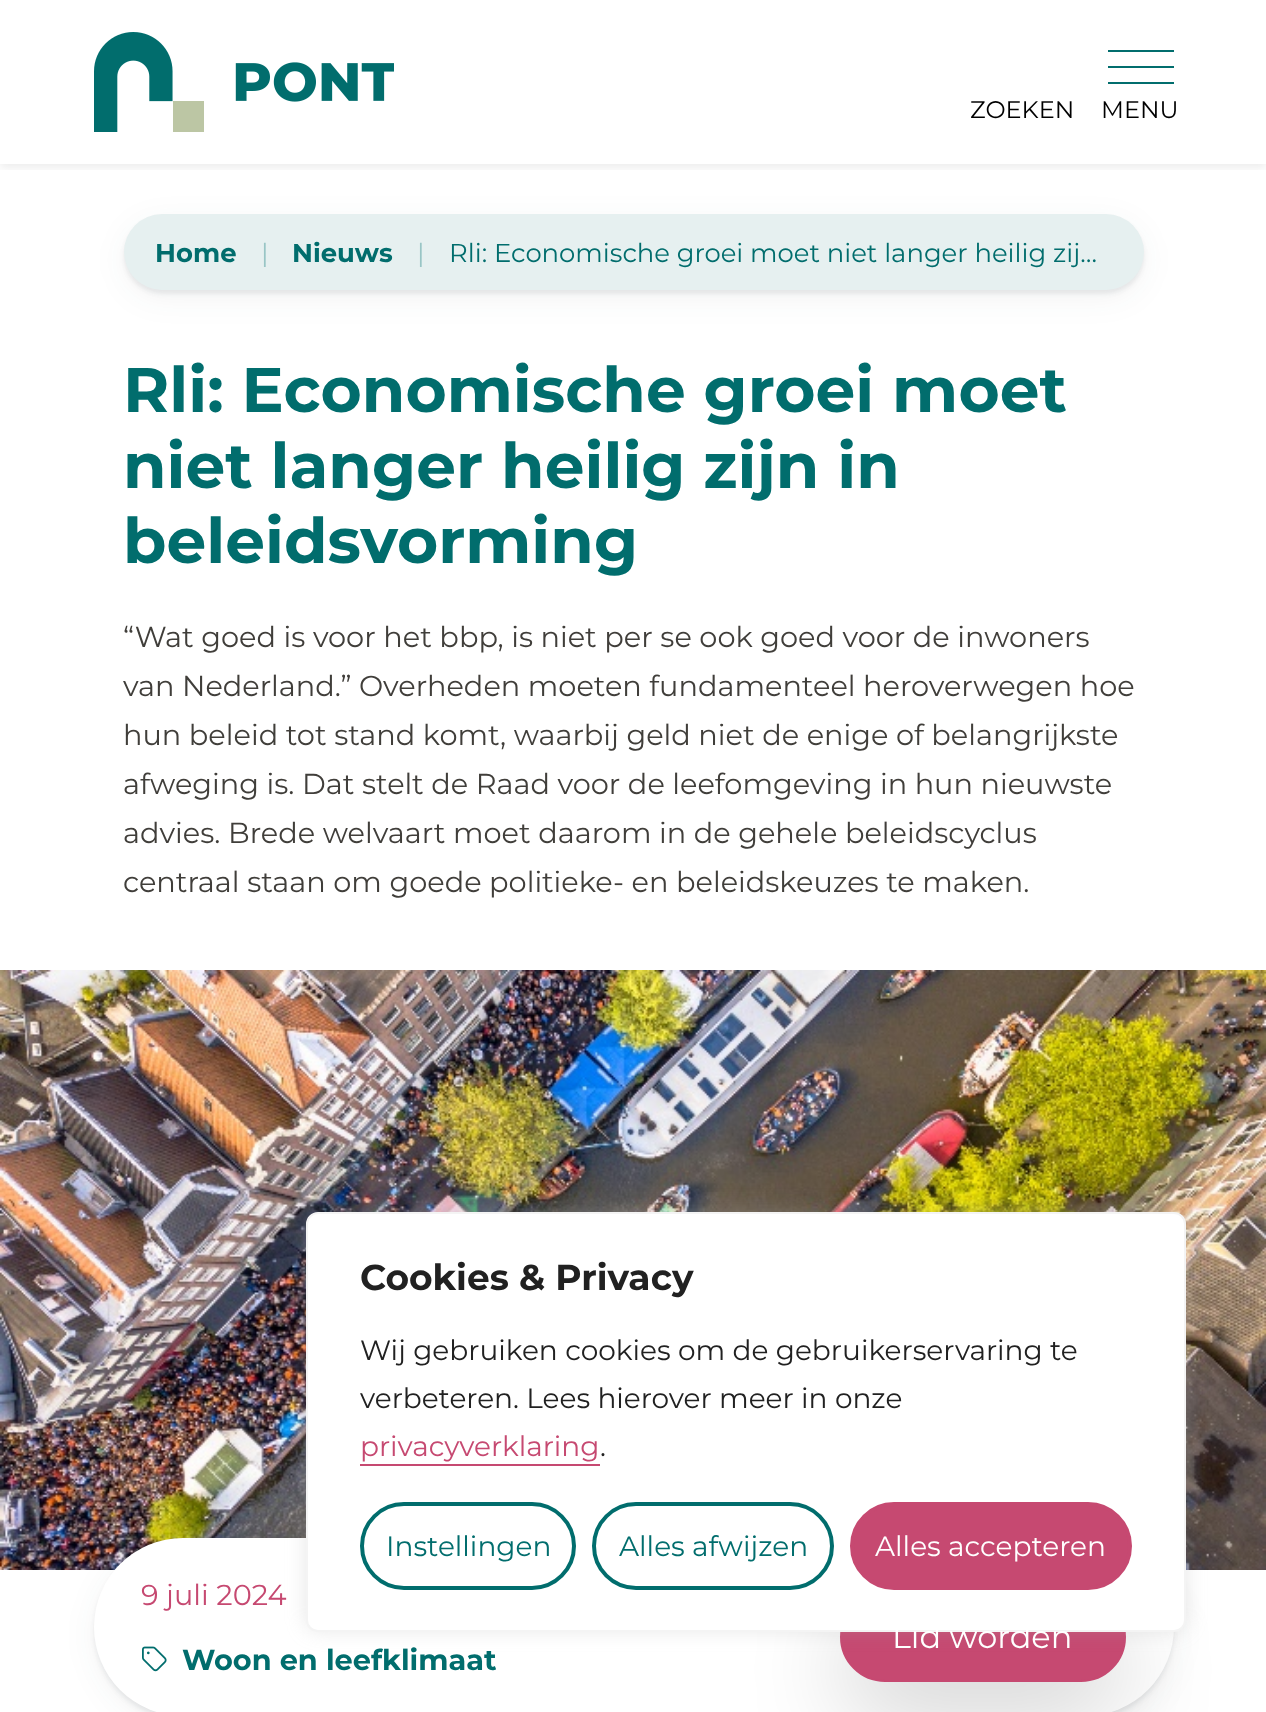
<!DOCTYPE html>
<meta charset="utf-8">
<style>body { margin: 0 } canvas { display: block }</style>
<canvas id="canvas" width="1266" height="1712"></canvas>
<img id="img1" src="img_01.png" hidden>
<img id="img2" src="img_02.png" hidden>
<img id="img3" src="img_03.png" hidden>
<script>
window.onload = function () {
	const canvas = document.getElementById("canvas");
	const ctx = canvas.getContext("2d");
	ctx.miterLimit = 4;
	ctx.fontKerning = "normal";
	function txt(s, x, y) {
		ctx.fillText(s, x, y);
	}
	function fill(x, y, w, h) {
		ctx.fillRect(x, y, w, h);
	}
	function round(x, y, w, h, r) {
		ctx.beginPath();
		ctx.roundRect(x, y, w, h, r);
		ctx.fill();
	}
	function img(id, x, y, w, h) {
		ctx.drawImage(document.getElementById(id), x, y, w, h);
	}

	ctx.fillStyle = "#FFFFFF";
	fill(0, 0, 1266, 1712);
	ctx.save();
	ctx.beginPath();
	ctx.rect(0, 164, 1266, 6);
	ctx.clip();
	ctx.fillStyle = "rgba(0, 0, 0, 0.07)";
	ctx.filter = "blur(4px)";
	ctx.beginPath();
	ctx.rect(0, 4, 1266, 164);
	ctx.fill();
	ctx.filter = "none";
	ctx.restore();
	img("img1", 94, 32, 300, 100);
	ctx.fillStyle = "#016D6D";
	fill(1108, 50, 66, 2);
	fill(1108, 66, 66, 2);
	fill(1108, 82, 66, 2);
	ctx.fillStyle = "rgba(40, 44, 53, 0.08)";
	ctx.filter = "blur(2px)";
	ctx.beginPath();
	ctx.roundRect(124, 218, 1020, 76, 38);
	ctx.fill();
	ctx.filter = "none";
	ctx.fillStyle = "rgba(40, 44, 53, 0.06)";
	ctx.filter = "blur(15px)";
	ctx.beginPath();
	ctx.roundRect(124, 222, 1020, 76, 38);
	ctx.fill();
	ctx.filter = "none";
	ctx.fillStyle = "#E6F0F0";
	round(124, 214, 1020, 76, 38);
	img("img2", 0, 970, 1266, 600);
	ctx.fillStyle = "rgba(40, 44, 53, 0.08)";
	ctx.filter = "blur(2px)";
	ctx.beginPath();
	ctx.roundRect(94, 1542, 1080, 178, 89);
	ctx.fill();
	ctx.filter = "none";
	ctx.fillStyle = "rgba(40, 44, 53, 0.06)";
	ctx.filter = "blur(15px)";
	ctx.beginPath();
	ctx.roundRect(94, 1546, 1080, 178, 89);
	ctx.fill();
	ctx.filter = "none";
	ctx.fillStyle = "#FFFFFF";
	round(94, 1538, 1080, 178, 89);
	img("img3", 142, 1646, 25, 26);
	ctx.fillStyle = "rgba(0, 0, 0, 0.18)";
	ctx.filter = "blur(48px)";
	ctx.beginPath();
	ctx.roundRect(840, 1624, 286, 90, 45);
	ctx.fill();
	ctx.filter = "none";
	ctx.fillStyle = "#C64971";
	ctx.beginPath();
	ctx.roundRect(841, 1593, 284, 88, 44);
	ctx.fill();
	ctx.strokeStyle = "#C64971";
	ctx.lineWidth = 2;
	ctx.stroke();
	ctx.fillStyle = "rgba(172, 171, 171, 0.3)";
	ctx.filter = "blur(10px)";
	ctx.beginPath();
	ctx.roundRect(306, 1210, 880, 420, 12);
	ctx.fill();
	ctx.filter = "none";
	ctx.fillStyle = "#FFFFFF";
	ctx.beginPath();
	ctx.roundRect(307, 1213, 878, 418, 11);
	ctx.fill();
	ctx.strokeStyle = "#F4F4F4";
	ctx.stroke();
	ctx.fillStyle = "#C64971";
	fill(360, 1464, 240, 2);
	ctx.beginPath();
	ctx.roundRect(362, 1504, 212, 84, 42);
	ctx.strokeStyle = "#016D6D";
	ctx.lineWidth = 4;
	ctx.stroke();
	ctx.beginPath();
	ctx.roundRect(594, 1504, 238, 84, 42);
	ctx.stroke();
	ctx.beginPath();
	ctx.roundRect(852, 1504, 278, 84, 42);
	ctx.fill();
	ctx.strokeStyle = "#C64971";
	ctx.stroke();
	ctx.font = "24px Montserrat";
	ctx.fillStyle = "#000000";
	txt("ZOEKEN", 970, 118);
	txt("MENU", 1101, 118);
	ctx.font = "bold 25.9px Montserrat";
	ctx.fillStyle = "#016D6D";
	txt("Home", 155, 262);
	ctx.font = "25.9px Montserrat";
	ctx.fillStyle = "#99C5C5";
	txt("|", 261, 262);
	ctx.font = "bold 25.9px Montserrat";
	ctx.fillStyle = "#016D6D";
	txt("Nieuws", 292, 262);
	ctx.font = "25.9px Montserrat";
	ctx.fillStyle = "#99C5C5";
	txt("|", 417, 262);
	ctx.fillStyle = "#016D6D";
	txt("Rli: Economische groei moet niet langer heilig zij…", 449, 262);
	ctx.font = "bold 63px Montserrat";
	txt("Rli: Economische groei moet", 123, 412);
	txt("niet langer heilig zijn in", 123, 488);
	txt("beleidsvorming", 123, 563);
	ctx.font = "28.8px Montserrat";
	ctx.fillStyle = "#403E3A";
	txt("“Wat goed is voor het bbp, is niet per se ook goed voor de inwoners", 123, 647);
	txt("van Nederland.” Overheden moeten fundamenteel heroverwegen hoe", 123, 696);
	txt("hun beleid tot stand komt, waarbij geld niet de enige of belangrijkste", 123, 745);
	txt("afweging is. Dat stelt de Raad voor de leefomgeving in hun nieuwste", 123, 794);
	txt("advies. Brede welvaart moet daarom in de gehele beleidscyclus", 123, 843);
	txt("centraal staan om goede politieke- en beleidskeuzes te maken.", 123, 892);
	ctx.fillStyle = "#C64971";
	txt("9 juli 2024", 141, 1605);
	ctx.font = "bold 28.8px Montserrat";
	ctx.fillStyle = "#016D6D";
	txt("Woon en leefklimaat", 182, 1670);
	ctx.font = "bold 36px Montserrat";
	ctx.fillStyle = "#212121";
	txt("Cookies & Privacy", 360, 1290);
	ctx.font = "28px Montserrat";
	txt("Wij gebruiken cookies om de gebruikerservaring te", 360, 1360);
	txt("verbeteren. Lees hierover meer in onze", 360, 1408);
	ctx.fillStyle = "#C64971";
	txt("privacyverklaring", 360, 1456);
	ctx.fillStyle = "#212121";
	txt(".", 600, 1456);
	ctx.fillStyle = "#016D6D";
	txt("Instellingen", 386, 1556);
	txt("Alles afwijzen", 619, 1556);
	ctx.fillStyle = "#FFFFFF";
	txt("Alles accepteren", 875, 1556);
	ctx.font = "32px Montserrat";
	txt("Lid worden", 892, 1648);
};
</script>
